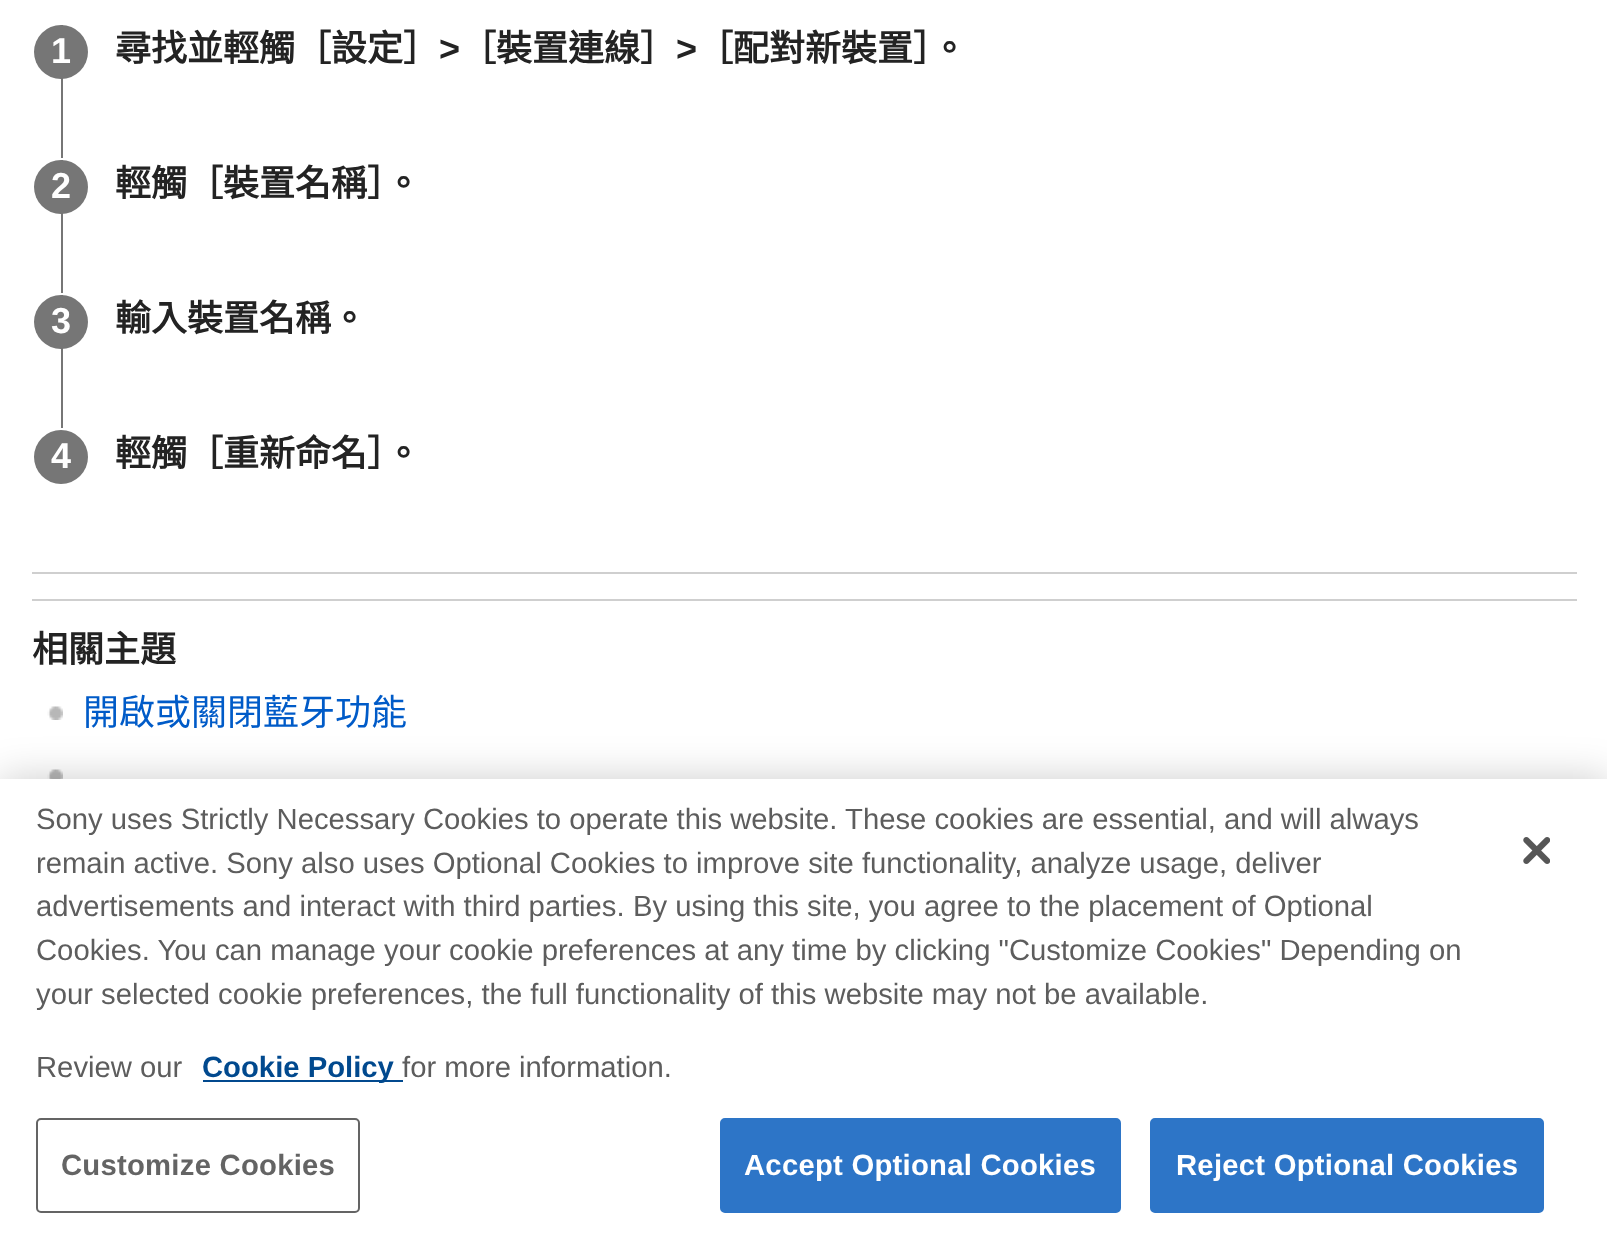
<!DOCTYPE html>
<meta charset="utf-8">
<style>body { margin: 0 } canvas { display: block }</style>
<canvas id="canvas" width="1607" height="1256"></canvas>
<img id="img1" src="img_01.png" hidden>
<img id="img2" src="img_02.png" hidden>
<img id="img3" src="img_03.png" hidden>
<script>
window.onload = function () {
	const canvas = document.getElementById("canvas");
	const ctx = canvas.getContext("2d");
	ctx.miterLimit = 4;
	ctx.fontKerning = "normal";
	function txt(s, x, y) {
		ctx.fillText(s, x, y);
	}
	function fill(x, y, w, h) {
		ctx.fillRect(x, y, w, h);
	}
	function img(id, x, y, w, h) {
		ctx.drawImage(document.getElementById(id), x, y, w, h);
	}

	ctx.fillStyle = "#FFFFFF";
	fill(0, 0, 1607, 1256);
	ctx.fillStyle = "#767676";
	fill(61, 25, 2, 133);
	ctx.beginPath();
	ctx.arc(61, 52, 27, 0, Math.PI * 2);
	ctx.fill();
	fill(61, 160, 2, 133);
	ctx.beginPath();
	ctx.arc(61, 187, 27, 0, Math.PI * 2);
	ctx.fill();
	fill(61, 295, 2, 133);
	ctx.beginPath();
	ctx.arc(61, 322, 27, 0, Math.PI * 2);
	ctx.fill();
	ctx.beginPath();
	ctx.arc(61, 457, 27, 0, Math.PI * 2);
	ctx.fill();
	ctx.fillStyle = "#CFCFCF";
	fill(32, 572, 1545, 2);
	fill(32, 599, 1545, 2);
	img("img1", 47, 706, 16, 14);
	img("img2", 47, 769, 16, 10);
	ctx.fillStyle = "rgba(0, 0, 0, 0.2)";
	ctx.filter = "blur(20px)";
	ctx.beginPath();
	ctx.rect(0, 779, 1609, 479);
	ctx.fill();
	ctx.filter = "none";
	ctx.fillStyle = "#FFFFFF";
	fill(0, 779, 1607, 477);
	ctx.fillStyle = "#01498E";
	fill(203, 1080, 200, 2);
	ctx.beginPath();
	ctx.roundRect(37, 1119, 322, 93, 4);
	ctx.strokeStyle = "#646464";
	ctx.lineWidth = 2;
	ctx.stroke();
	ctx.fillStyle = "#2D75C7";
	ctx.beginPath();
	ctx.roundRect(721, 1119, 399, 93, 4);
	ctx.fill();
	ctx.strokeStyle = "#2D75C7";
	ctx.stroke();
	ctx.beginPath();
	ctx.roundRect(1151, 1119, 392, 93, 4);
	ctx.fill();
	ctx.stroke();
	img("img3", 1523, 837, 27, 27);
	ctx.font = "bold 36px Liberation Sans";
	ctx.fillStyle = "#FFFFFF";
	txt("1", 51, 63);
	ctx.font = "bold 36px Noto Sans CJK TC";
	ctx.fillStyle = "#232323";
	txt("尋找並輕觸［設定］", 115, 61);
	ctx.font = "bold 36px Liberation Sans";
	txt(">", 439, 61);
	ctx.font = "bold 36px Noto Sans CJK TC";
	txt("［裝置連線］", 460, 61);
	ctx.font = "bold 36px Liberation Sans";
	txt(">", 676, 61);
	ctx.font = "bold 36px Noto Sans CJK TC";
	txt("［配對新裝置］。", 697, 61);
	ctx.font = "bold 36px Liberation Sans";
	ctx.fillStyle = "#FFFFFF";
	txt("2", 51, 198);
	ctx.font = "bold 36px Noto Sans CJK TC";
	ctx.fillStyle = "#232323";
	txt("輕觸［裝置名稱］。", 115, 196);
	ctx.font = "bold 36px Liberation Sans";
	ctx.fillStyle = "#FFFFFF";
	txt("3", 51, 333);
	ctx.font = "bold 36px Noto Sans CJK TC";
	ctx.fillStyle = "#232323";
	txt("輸入裝置名稱。", 115, 331);
	ctx.font = "bold 36px Liberation Sans";
	ctx.fillStyle = "#FFFFFF";
	txt("4", 51, 468);
	ctx.font = "bold 36px Noto Sans CJK TC";
	ctx.fillStyle = "#232323";
	txt("輕觸［重新命名］。", 115, 466);
	txt("相關主題", 32, 662);
	ctx.font = "36px Noto Sans CJK TC";
	ctx.fillStyle = "#005BC8";
	txt("開啟或關閉藍牙功能", 83, 725);
	ctx.font = "29.25px Liberation Sans";
	ctx.fillStyle = "#5D5D5D";
	txt("Sony uses Strictly Necessary Cookies to operate this website. These cookies are essential, and will always", 36, 829);
	txt("remain active. Sony also uses Optional Cookies to improve site functionality, analyze usage, deliver", 36, 873);
	txt("advertisements and interact with third parties.", 36, 916);
	txt("By using this site, you agree to the placement of Optional", 633, 916);
	txt("Cookies. You can manage your cookie preferences at any time by clicking \"Customize Cookies\" Depending on", 36, 960);
	txt("your selected cookie preferences, the full functionality of this website may not be available.", 36, 1004);
	txt("Review our", 36, 1077);
	ctx.font = "bold 29.25px Liberation Sans";
	ctx.fillStyle = "#01498E";
	txt("Cookie Policy", 202, 1077);
	ctx.font = "29.25px Liberation Sans";
	ctx.fillStyle = "#5D5D5D";
	txt("for more information.", 402, 1077);
	ctx.letterSpacing = "0.25px";
	ctx.font = "bold 29.25px Liberation Sans";
	ctx.fillStyle = "#646464";
	txt("Customize Cookies", 61, 1175);
	ctx.fillStyle = "#FFFFFF";
	txt("Accept Optional Cookies", 744, 1175);
	txt("Reject Optional Cookies", 1176, 1175);
};
</script>
